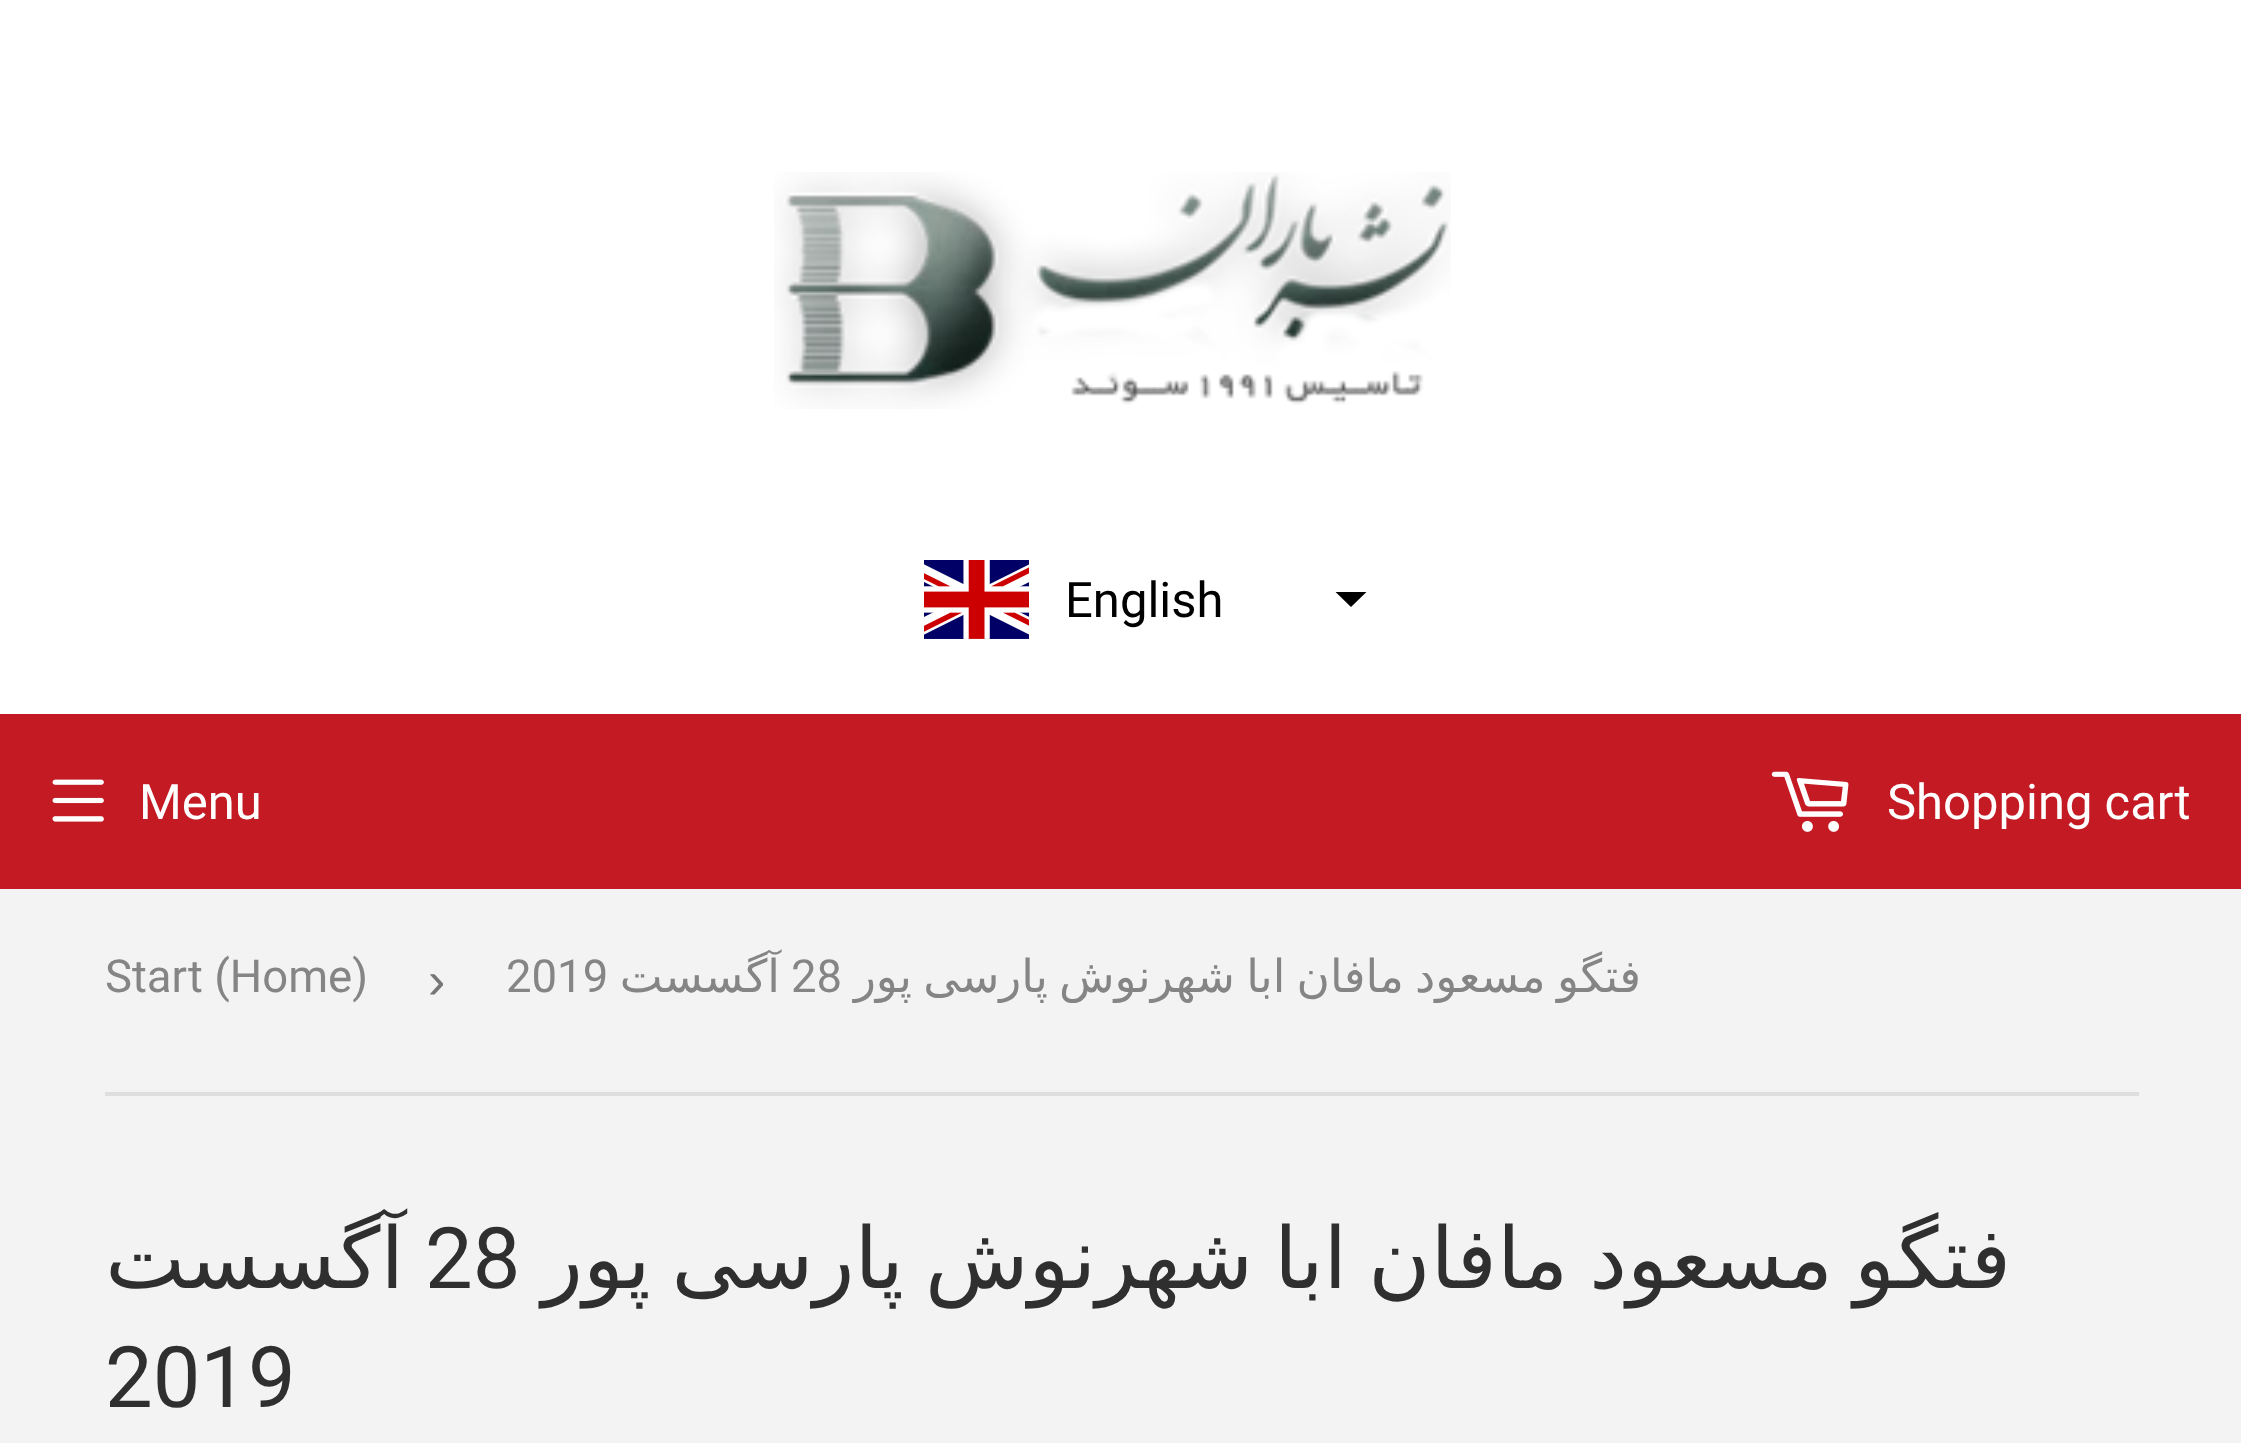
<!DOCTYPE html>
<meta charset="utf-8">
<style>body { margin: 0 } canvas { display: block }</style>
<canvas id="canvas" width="2241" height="1443"></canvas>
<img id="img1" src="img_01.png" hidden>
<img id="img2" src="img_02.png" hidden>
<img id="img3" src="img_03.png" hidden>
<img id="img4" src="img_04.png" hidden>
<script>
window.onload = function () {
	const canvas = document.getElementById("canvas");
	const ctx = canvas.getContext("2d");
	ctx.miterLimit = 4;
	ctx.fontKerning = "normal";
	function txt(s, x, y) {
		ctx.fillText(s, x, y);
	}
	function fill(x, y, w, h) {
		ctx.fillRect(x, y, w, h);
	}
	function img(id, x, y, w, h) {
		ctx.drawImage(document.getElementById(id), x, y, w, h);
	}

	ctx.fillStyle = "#F3F3F3";
	fill(0, 0, 2241, 1443);
	ctx.fillStyle = "#FFFFFF";
	fill(0, 0, 2241, 714);
	img("img1", 774, 172, 677, 237);
	ctx.save();
	ctx.beginPath();
	ctx.rect(1334, 592, 35, 17);
	ctx.clip();
	ctx.fillStyle = "#000000";
	ctx.beginPath();
	ctx.moveTo(1368.5, 590);
	ctx.lineTo(1351, 607);
	ctx.lineTo(1333.5, 590);
	ctx.closePath();
	ctx.fill("evenodd");
	ctx.restore();
	img("img2", 924, 560, 105, 79);
	ctx.fillStyle = "#C41A24";
	fill(0, 714, 2241, 175);
	img("img3", 1771, 771, 78, 61);
	img("img4", 52, 779, 52, 43);
	ctx.fillStyle = "#DEDEDE";
	fill(105, 1092, 2034, 4);
	ctx.font = "49px Roboto";
	ctx.fillStyle = "#000000";
	txt("English", 1065, 617);
	ctx.fillStyle = "#FFFFFF";
	txt("Shopping cart", 1887, 819);
	txt("Menu", 139, 819);
	ctx.wordSpacing = "-3.25px";
	ctx.direction = "rtl";
	ctx.font = "45.5px DejaVu Sans";
	ctx.fillStyle = "#858585";
	txt("فتگو مسعود مافان ابا شهرنوش پارسی پور", 1641, 992);
	ctx.wordSpacing = "0px";
	ctx.direction = "ltr";
	ctx.font = "45.5px Roboto";
	txt("28", 791, 992);
	ctx.direction = "rtl";
	ctx.font = "45.5px DejaVu Sans";
	txt("آگسست", 780, 992);
	ctx.direction = "ltr";
	ctx.font = "45.5px Roboto";
	txt("2019", 506, 992);
	ctx.font = "52px Liberation Sans";
	ctx.fillStyle = "#767676";
	txt("›", 428, 998);
	ctx.font = "45.5px Roboto";
	ctx.fillStyle = "#858585";
	txt("Start (Home)", 105, 992);
	ctx.wordSpacing = "-6px";
	ctx.direction = "rtl";
	ctx.font = "84.9px DejaVu Sans";
	ctx.fillStyle = "#2F2F2F";
	txt("فتگو مسعود مافان ابا شهرنوش پارسی پور", 2011, 1288);
	ctx.wordSpacing = "0px";
	ctx.direction = "ltr";
	ctx.font = "84.9px Roboto";
	txt("28", 425, 1288);
	ctx.direction = "rtl";
	ctx.font = "84.9px DejaVu Sans";
	txt("آگسست", 404, 1288);
	ctx.direction = "ltr";
	ctx.font = "84.9px Roboto";
	txt("2019", 105, 1407);
};
</script>
